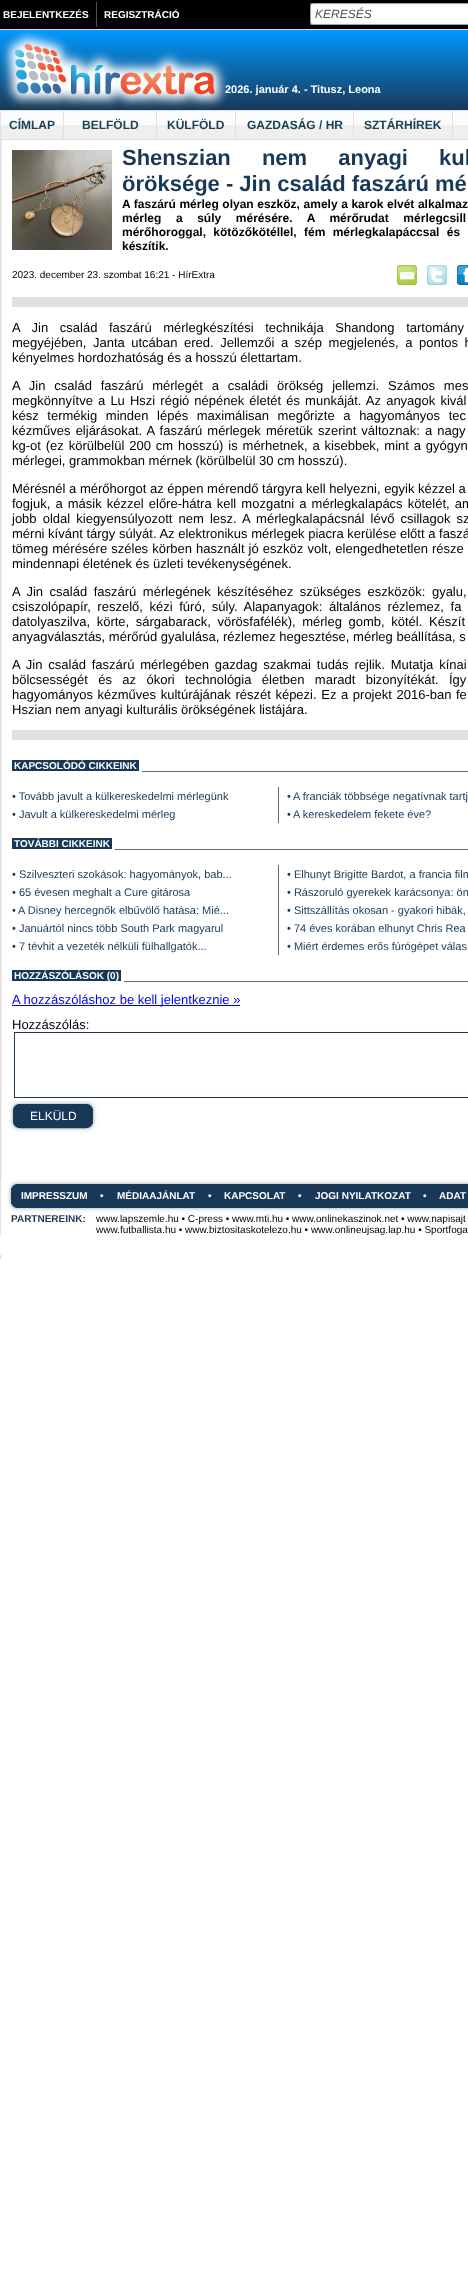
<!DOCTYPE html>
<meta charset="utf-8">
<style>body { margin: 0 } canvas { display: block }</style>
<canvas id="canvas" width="468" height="2285"></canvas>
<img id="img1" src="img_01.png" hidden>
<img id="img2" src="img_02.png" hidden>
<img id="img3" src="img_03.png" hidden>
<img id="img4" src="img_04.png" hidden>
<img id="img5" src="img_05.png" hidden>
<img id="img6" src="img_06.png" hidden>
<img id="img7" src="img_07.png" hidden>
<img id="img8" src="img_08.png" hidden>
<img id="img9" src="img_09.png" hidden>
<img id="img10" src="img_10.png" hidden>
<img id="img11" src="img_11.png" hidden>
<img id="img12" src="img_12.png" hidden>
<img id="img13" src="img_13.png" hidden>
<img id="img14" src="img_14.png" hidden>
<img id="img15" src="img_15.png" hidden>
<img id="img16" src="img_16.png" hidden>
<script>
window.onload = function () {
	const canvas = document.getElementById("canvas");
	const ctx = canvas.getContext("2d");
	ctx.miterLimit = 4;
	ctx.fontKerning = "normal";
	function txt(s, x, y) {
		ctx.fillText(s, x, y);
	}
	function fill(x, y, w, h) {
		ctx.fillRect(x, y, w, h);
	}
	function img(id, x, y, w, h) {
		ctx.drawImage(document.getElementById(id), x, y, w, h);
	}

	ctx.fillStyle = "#FFFFFF";
	fill(0, 0, 468, 2285);
	img("img1", 0, 110, 1, 30);
	ctx.fillStyle = "#000000";
	fill(0, 0, 468, 29);
	ctx.fillStyle = "#4E5150";
	fill(96, 2, 1, 25);
	img("img2", 310, 3, 158, 22);
	img("img3", 0, 29, 468, 81);
	img("img4", 1, 110, 62, 30);
	ctx.fillStyle = "#E1E1E1";
	fill(63, 110, 1, 30);
	img("img5", 64, 110, 92, 30);
	fill(156, 110, 1, 30);
	img("img6", 157, 110, 78, 30);
	fill(235, 110, 1, 30);
	img("img7", 236, 110, 117, 30);
	fill(353, 110, 1, 30);
	img("img8", 354, 110, 98, 30);
	fill(452, 110, 1, 30);
	img("img9", 453, 110, 15, 30);
	img("img10", 0, 140, 2, 1119);
	img("img11", 12, 150, 100, 100);
	img("img12", 397, 265, 20, 20);
	img("img13", 427, 265, 20, 20);
	img("img14", 457, 265, 11, 20);
	ctx.fillStyle = "#E0E0E0";
	fill(12, 297, 456, 10);
	fill(12, 730, 456, 10);
	ctx.fillStyle = "#666666";
	fill(142, 771, 326, 1);
	ctx.fillStyle = "#193857";
	fill(12, 760, 127, 11);
	ctx.fillStyle = "#666666";
	fill(278, 787, 1, 36);
	fill(115, 849, 353, 1);
	ctx.fillStyle = "#193857";
	fill(12, 838, 100, 11);
	ctx.fillStyle = "#666666";
	fill(278, 865, 1, 90);
	fill(124, 981, 344, 1);
	ctx.fillStyle = "#193857";
	fill(12, 970, 109, 11);
	ctx.fillStyle = "#0000EE";
	fill(12, 1005, 228, 1);
	ctx.strokeStyle = "#193857";
	ctx.strokeRect(14.5, 1032.5, 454, 65);
	img("img15", 7, 1098, 92, 36);
	img("img16", 1, 1179, 467, 34);
	ctx.fillStyle = "#FFFFFF";
	fill(1, 1213, 1, 22);
	fill(0, 1235, 2, 20);
	ctx.font = "bold 10px Liberation Sans";
	txt("BEJELENTKEZÉS", 3, 18);
	txt("REGISZTRÁCIÓ", 104, 18);
	ctx.font = "italic 12px Liberation Sans";
	ctx.fillStyle = "#4E5150";
	txt("KERESÉS", 315, 18);
	ctx.font = "bold 11px Liberation Sans";
	ctx.fillStyle = "#FFFFFF";
	txt("2026. január 4. - Titusz, Leona", 225, 93);
	ctx.font = "bold 12px Liberation Sans";
	ctx.fillStyle = "#194157";
	txt("CÍMLAP", 9, 129);
	txt("BELFÖLD", 82, 129);
	txt("KÜLFÖLD", 167, 129);
	txt("GAZDASÁG / HR", 247, 129);
	txt("SZTÁRHÍREK", 364, 129);
	ctx.wordSpacing = "25px";
	ctx.font = "bold 22px Liberation Sans";
	ctx.fillStyle = "#193857";
	txt("Shenszian nem anyagi kul", 122, 165);
	ctx.wordSpacing = "0px";
	txt("öröksége - Jin család faszárú mé", 122, 191);
	ctx.wordSpacing = "0.25px";
	ctx.font = "bold 12px Liberation Sans";
	ctx.fillStyle = "#000000";
	txt("A faszárú mérleg olyan eszköz, amely a karok elvét alkalmaz", 122, 208);
	ctx.wordSpacing = "11.25px";
	txt("mérleg a súly mérésére. A mérőrudat mérlegcsill", 122, 222);
	ctx.wordSpacing = "4px";
	txt("mérőhoroggal, kötözőkötéllel, fém mérlegkalapáccsal és", 122, 236);
	ctx.wordSpacing = "0px";
	txt("készítik.", 122, 250);
	ctx.font = "10px Liberation Sans";
	txt("2023. december 23. szombat 16:21 - HírExtra", 12, 278);
	ctx.wordSpacing = "8px";
	ctx.font = "13px Liberation Sans";
	txt("A Jin család faszárú mérlegkészítési technikája Shandong tartomány", 12, 332);
	ctx.wordSpacing = "2.9px";
	txt("megyéjében, Janta utcában ered. Jellemzői a szép megjelenés, a pontos h", 12, 347);
	ctx.wordSpacing = "0px";
	txt("kényelmes hordozhatóság és a hosszú élettartam.", 12, 362);
	ctx.wordSpacing = "5.25px";
	txt("A Jin család faszárú mérlegét a családi örökség jellemzi. Számos mes", 12, 390);
	ctx.wordSpacing = "1.5px";
	txt("megkönnyítve a Lu Hszi régió népének életét és munkáját. Az anyagok kivál", 12, 405);
	ctx.wordSpacing = "5px";
	txt("kész termékig minden lépés maximálisan megőrizte a hagyományos tec", 12, 420);
	ctx.wordSpacing = "1.5px";
	txt("kézműves eljárásokat. A faszárú mérlegek méretük szerint változnak: a nagy", 12, 435);
	ctx.wordSpacing = "1.25px";
	txt("kg-ot (ez körülbelül 200 cm hosszú) is mérhetnek, a kisebbek, mint a gyógyn", 12, 450);
	ctx.wordSpacing = "0px";
	txt("mérlegei, grammokban mérnek (körülbelül 30 cm hosszú).", 12, 465);
	txt("Mérésnél a mérőhorgot az éppen mérendő tárgyra kell helyezni, egyik kézzel a", 12, 493);
	ctx.wordSpacing = "1.5px";
	txt("fogjuk, a másik kézzel előre-hátra kell mozgatni a mérlegkalapács kötelét, am", 12, 508);
	ctx.wordSpacing = "2.5px";
	txt("jobb oldal kiegyensúlyozott nem lesz. A mérlegkalapácsnál lévő csillagok sz", 12, 523);
	ctx.wordSpacing = "0px";
	txt("mérni kívánt tárgy súlyát. Az elektronikus mérlegek piacra kerülése előtt a faszá", 12, 538);
	ctx.wordSpacing = "0.5px";
	txt("tömeg mérésére széles körben használt jó eszköz volt, elengedhetetlen része", 12, 553);
	ctx.wordSpacing = "0px";
	txt("mindennapi életének és üzleti tevékenységének.", 12, 568);
	ctx.wordSpacing = "2.9px";
	txt("A Jin család faszárú mérlegének készítéséhez szükséges eszközök: gyalu,", 12, 596);
	ctx.wordSpacing = "3px";
	txt("csiszolópapír, reszelő, kézi fúró, súly. Alapanyagok: általános rézlemez, fa", 12, 611);
	txt("datolyaszilva, körte, sárgabarack, vörösfafélék), mérleg gomb, kötél. Készít", 12, 626);
	ctx.wordSpacing = "0px";
	txt("anyagválasztás, mérőrúd gyalulása, rézlemez hegesztése, mérleg beállítása, s", 12, 641);
	ctx.wordSpacing = "2.25px";
	txt("A Jin család faszárú mérlegében gazdag szakmai tudás rejlik. Mutatja kínai", 12, 669);
	ctx.wordSpacing = "6.75px";
	txt("bölcsességét és az ókori technológia életben maradt bizonyítékát. Így", 12, 684);
	ctx.wordSpacing = "1px";
	txt("hagyományos kézműves kultúrájának részét képezi. Ez a projekt 2016-ban fe", 12, 699);
	ctx.wordSpacing = "0px";
	txt("Hszian nem anyagi kulturális örökségének listájára.", 12, 714);
	ctx.font = "bold 10px Liberation Sans";
	ctx.fillStyle = "#FFFFFF";
	txt("KAPCSOLÓDÓ CIKKEINK", 14, 769);
	ctx.font = "11px Liberation Sans";
	ctx.fillStyle = "#193857";
	txt("• Tovább javult a külkereskedelmi mérlegünk", 12, 800);
	txt("•", 287, 800);
	txt("A franciák többsége negatívnak tartj", 293, 800);
	txt("• Javult a külkereskedelmi mérleg", 12, 818);
	txt("•", 287, 818);
	txt("A kereskedelem fekete éve?", 293, 818);
	ctx.font = "bold 10px Liberation Sans";
	ctx.fillStyle = "#FFFFFF";
	txt("TOVÁBBI CIKKEINK", 14, 847);
	ctx.font = "11px Liberation Sans";
	ctx.fillStyle = "#193857";
	txt("• Szilveszteri szokások: hagyományok, bab...", 12, 878);
	txt("• Elhunyt Brigitte Bardot, a francia film", 287, 878);
	txt("• 65 évesen meghalt a Cure gitárosa", 12, 896);
	txt("• Rászoruló gyerekek karácsonya: ön", 287, 896);
	txt("•", 12, 914);
	txt("A Disney hercegnők elbűvölő hatása: Mié...", 18, 914);
	txt("• Sittszállítás okosan - gyakori hibák,", 287, 914);
	txt("• Januártól nincs több South Park magyarul", 12, 932);
	txt("• 74 éves korában elhunyt Chris Rea", 287, 932);
	txt("• 7 tévhit a vezeték nélküli fülhallgatók...", 12, 950);
	txt("• Miért érdemes erős fúrógépet válas", 287, 950);
	ctx.font = "bold 10px Liberation Sans";
	ctx.fillStyle = "#FFFFFF";
	txt("HOZZÁSZÓLÁSOK (0)", 14, 979);
	ctx.font = "13px Liberation Sans";
	ctx.fillStyle = "#0000EE";
	txt("A hozzászóláshoz be kell jelentkeznie »", 12, 1004);
	ctx.fillStyle = "#000000";
	txt("Hozzászólás:", 12, 1029);
	ctx.font = "12px Liberation Sans";
	ctx.fillStyle = "#FFFFFF";
	txt("ELKÜLD", 30, 1120);
	ctx.font = "bold 10px Liberation Sans";
	txt("IMPRESSZUM", 21, 1199);
	txt("•", 100, 1199);
	txt("MÉDIAAJÁNLAT", 117, 1199);
	txt("•", 208, 1199);
	txt("KAPCSOLAT", 224, 1199);
	txt("•", 298, 1199);
	txt("JOGI NYILATKOZAT", 315, 1199);
	txt("•", 423, 1199);
	txt("ADAT", 439, 1199);
	ctx.fillStyle = "#193857";
	txt("PARTNEREINK:", 11, 1222);
	ctx.font = "10px Liberation Sans";
	ctx.fillStyle = "#000000";
	txt("www.lapszemle.hu • C-press • www.mti.hu • www.onlinekaszinok.net • www.napisajt", 96, 1222);
	txt("www.futballista.hu • www.biztositaskotelezo.hu • www.onlineujsag.lap.hu • Sportfoga", 96, 1233);
};
</script>
